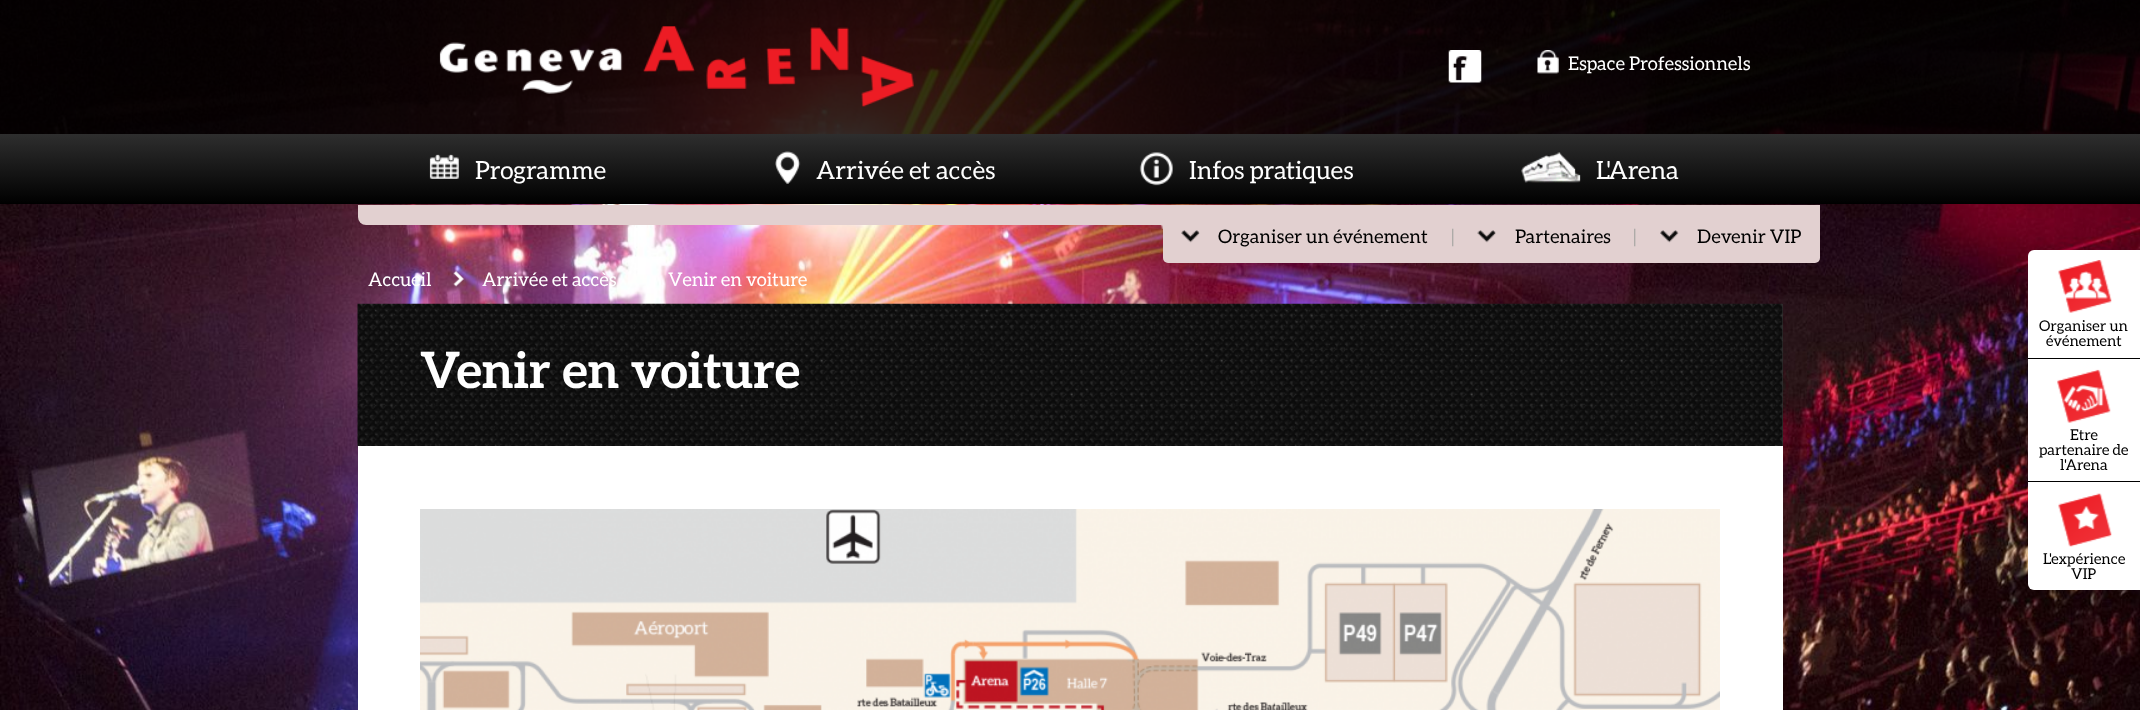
<!DOCTYPE html>
<meta charset="utf-8">
<style>body { margin: 0 } canvas { display: block }</style>
<canvas id="canvas" width="2140" height="710"></canvas>
<img id="img1" src="img_01.png" hidden>
<img id="img2" src="img_02.png" hidden>
<img id="img3" src="img_03.png" hidden>
<img id="img4" src="img_04.png" hidden>
<img id="img5" src="img_05.png" hidden>
<img id="img6" src="img_06.png" hidden>
<img id="img7" src="img_07.png" hidden>
<img id="img8" src="img_08.png" hidden>
<img id="img9" src="img_09.png" hidden>
<img id="img10" src="img_10.png" hidden>
<img id="img11" src="img_11.png" hidden>
<img id="img12" src="img_12.png" hidden>
<img id="img13" src="img_13.png" hidden>
<img id="img14" src="img_14.png" hidden>
<img id="img15" src="img_15.png" hidden>
<img id="img16" src="img_16.png" hidden>
<img id="img17" src="img_17.png" hidden>
<img id="img18" src="img_18.png" hidden>
<script>
window.onload = function () {
	const canvas = document.getElementById("canvas");
	const ctx = canvas.getContext("2d");
	ctx.miterLimit = 4;
	ctx.fontKerning = "normal";
	function txt(s, x, y) {
		ctx.fillText(s, x, y);
	}
	function fill(x, y, w, h) {
		ctx.fillRect(x, y, w, h);
	}
	function img(id, x, y, w, h) {
		ctx.drawImage(document.getElementById(id), x, y, w, h);
	}
	let gradient;

	ctx.fillStyle = "#FFFFFF";
	fill(0, 0, 2140, 710);
	img("img1", 0, 0, 2140, 710);
	ctx.fillStyle = "rgba(0, 0, 0, 0.8)";
	fill(0, 0, 2140, 134);
	img("img2", 439, 26, 475, 81);
	img("img3", 1448, 50, 34, 33);
	img("img4", 1537, 50, 22, 24);
	gradient = ctx.createLinearGradient(1070, 204, 1070, 134);
	gradient.addColorStop(0, "#000000");
	gradient.addColorStop(1, "#2E2E2E");
	ctx.fillStyle = gradient;
	fill(0, 134, 2140, 70);
	img("img5", 429, 154, 30, 25);
	img("img6", 775, 151, 26, 33);
	img("img7", 1139, 152, 34, 34);
	img("img8", 1521, 152, 60, 31);
	ctx.fillStyle = "#E2D0D0";
	ctx.beginPath();
	ctx.roundRect(358, 205, 1462, 20, [0, 0, 0, 8]);
	ctx.fill();
	ctx.beginPath();
	ctx.roundRect(1163, 216, 657, 47, [0, 0, 5, 5]);
	ctx.fill();
	img("img9", 1160, 225, 3, 4);
	img("img10", 1181, 230, 19, 13);
	img("img11", 1477, 230, 19, 13);
	img("img12", 1660, 230, 19, 13);
	img("img13", 453, 271, 11, 16);
	ctx.fillStyle = "#3F3B3B";
	fill(1782, 304, 1, 142);
	img("img14", 357, 303, 1426, 144);
	ctx.fillStyle = "#FFFFFF";
	fill(358, 446, 1425, 264);
	img("img15", 420, 509, 1300, 201);
	ctx.beginPath();
	ctx.roundRect(2028, 250, 112, 340, [6, 0, 0, 6]);
	ctx.fill();
	ctx.fillStyle = "#000000";
	fill(2028, 358, 112, 1);
	img("img16", 2058, 260, 54, 53);
	fill(2028, 481, 112, 1);
	img("img17", 2057, 369, 54, 54);
	img("img18", 2058, 493, 54, 54);
	ctx.font = "18.75px Aleo";
	ctx.fillStyle = "#FFFFFF";
	txt("Espace Professionnels", 1568, 70);
	ctx.font = "25px Aleo";
	txt("Programme", 475, 179);
	txt("Arrivée et accès", 816, 179);
	txt("Infos pratiques", 1189, 179);
	txt("L'Arena", 1596, 179);
	ctx.font = "18.75px Aleo";
	ctx.fillStyle = "#000000";
	txt("Organiser un événement", 1218, 243);
	ctx.fillStyle = "#ACAAA7";
	txt("|", 1451, 243);
	ctx.fillStyle = "#000000";
	txt("Partenaires", 1515, 243);
	ctx.fillStyle = "#ACAAA7";
	txt("|", 1633, 243);
	ctx.fillStyle = "#000000";
	txt("Devenir VIP", 1697, 243);
	ctx.fillStyle = "#FFFFFF";
	txt("Accueil", 368, 286);
	txt("Arrivée et accès", 482, 286);
	txt("Venir en voiture", 668, 286);
	ctx.font = "bold 50px Aleo";
	txt("Venir en voiture", 420, 388);
	ctx.font = "15px Aleo";
	ctx.fillStyle = "#000000";
	txt("Organiser un", 2039, 331);
	txt("événement", 2046, 346);
	txt("Etre", 2070, 440);
	txt("partenaire de", 2039, 455);
	txt("l'Arena", 2060, 470);
	txt("L'expérience", 2043, 564);
	txt("VIP", 2071, 579);
};
</script>
